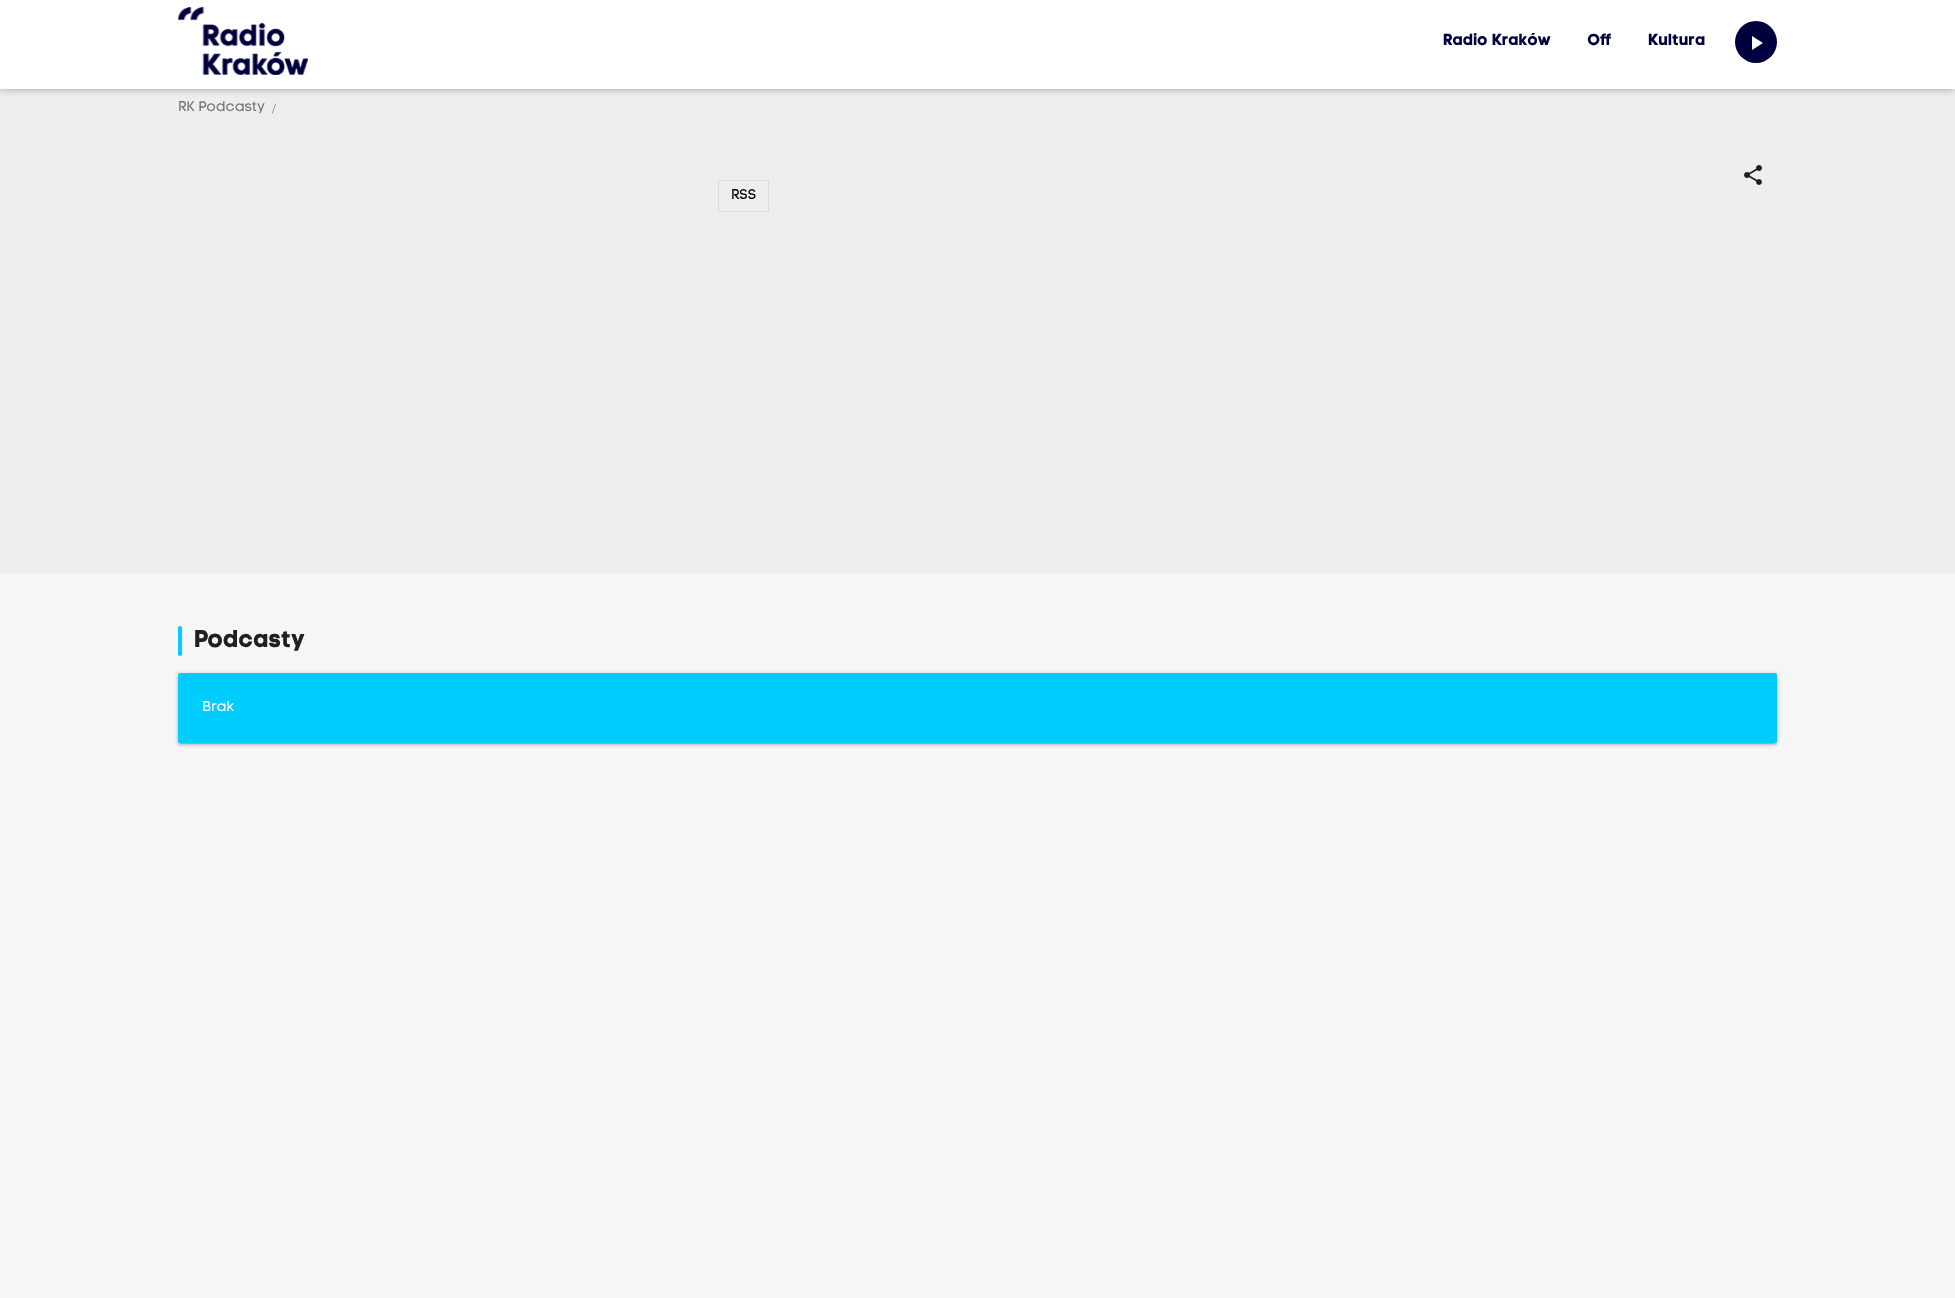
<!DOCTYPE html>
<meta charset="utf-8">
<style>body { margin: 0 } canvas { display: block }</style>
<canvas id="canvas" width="1955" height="1298"></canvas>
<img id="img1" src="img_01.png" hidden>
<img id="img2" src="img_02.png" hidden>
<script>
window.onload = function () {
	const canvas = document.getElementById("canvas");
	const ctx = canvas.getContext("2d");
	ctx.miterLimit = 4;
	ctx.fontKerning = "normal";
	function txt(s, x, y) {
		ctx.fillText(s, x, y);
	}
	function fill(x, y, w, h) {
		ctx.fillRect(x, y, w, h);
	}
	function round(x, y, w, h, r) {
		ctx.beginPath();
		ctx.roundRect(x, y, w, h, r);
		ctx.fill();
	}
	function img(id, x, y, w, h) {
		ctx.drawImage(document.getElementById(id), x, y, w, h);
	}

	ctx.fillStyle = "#F6F6F6";
	fill(0, 0, 1955, 1298);
	ctx.fillStyle = "#EEEEEE";
	fill(0, 89, 1955, 484);
	ctx.fillStyle = "rgba(0, 0, 0, 0.33)";
	ctx.filter = "blur(4px)";
	ctx.beginPath();
	ctx.rect(0, 0, 1955, 89);
	ctx.fill();
	ctx.filter = "none";
	ctx.fillStyle = "#FFFFFF";
	fill(0, 0, 1955, 89);
	img("img1", 177, 7, 131, 68);
	ctx.fillStyle = "#00003E";
	ctx.beginPath();
	ctx.arc(1756, 42, 21, 0, Math.PI * 2);
	ctx.fill();
	ctx.fillStyle = "#FFFFFF";
	ctx.beginPath();
	ctx.moveTo(1752, 36);
	ctx.lineTo(1763, 43);
	ctx.lineTo(1752, 50);
	ctx.closePath();
	ctx.fill();
	img("img2", 1744, 165, 18, 20);
	ctx.strokeStyle = "#DDDDDD";
	ctx.strokeRect(718.5, 180.5, 50, 31);
	ctx.fillStyle = "#00CDFE";
	round(178, 626, 4, 30, 2);
	ctx.fillStyle = "rgba(0, 0, 0, 0.2)";
	ctx.filter = "blur(2.5px)";
	ctx.beginPath();
	ctx.roundRect(178, 674, 1599, 70, 2);
	ctx.fill();
	ctx.filter = "none";
	ctx.fillStyle = "rgba(0, 0, 0, 0.12)";
	ctx.filter = "blur(0.5px)";
	ctx.beginPath();
	ctx.rect(180, 678, 1595, 66);
	ctx.fill();
	ctx.filter = "none";
	ctx.fillStyle = "rgba(0, 0, 0, 0.14)";
	ctx.filter = "blur(1px)";
	ctx.beginPath();
	ctx.roundRect(178, 675, 1599, 70, 2);
	ctx.fill();
	ctx.filter = "none";
	ctx.fillStyle = "#00CDFE";
	round(178, 673, 1599, 70, 2);
	ctx.font = "bold 16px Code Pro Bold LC";
	ctx.fillStyle = "#00003E";
	txt("Radio Kraków", 1443, 45);
	txt("Off", 1587, 45);
	txt("Kultura", 1648, 45);
	ctx.font = "14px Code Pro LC";
	ctx.fillStyle = "#777777";
	txt("RK Podcasty", 178, 111);
	ctx.font = "14px Liberation Serif";
	txt("/", 272, 113);
	ctx.font = "14px Code Pro LC";
	ctx.fillStyle = "#000000";
	txt("RSS", 731, 199);
	ctx.font = "bold 24px Code Pro Bold LC";
	ctx.fillStyle = "#202020";
	txt("Podcasty", 194, 647);
	ctx.font = "14px Code Pro LC";
	ctx.fillStyle = "#FFFFFF";
	txt("Brak", 202, 711);
};
</script>
